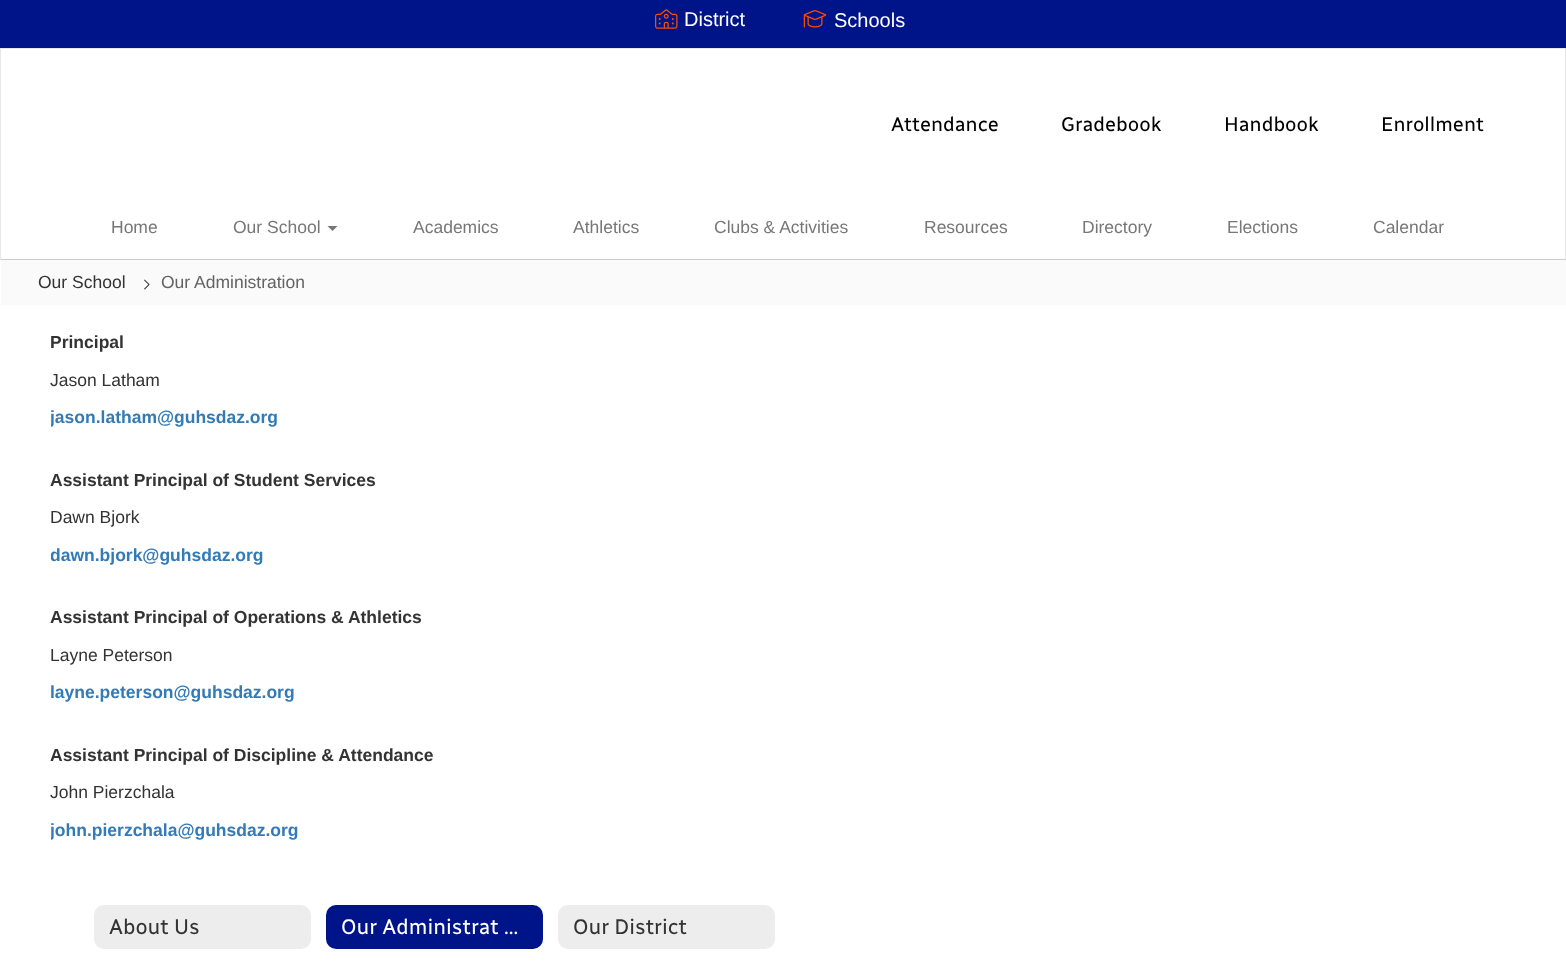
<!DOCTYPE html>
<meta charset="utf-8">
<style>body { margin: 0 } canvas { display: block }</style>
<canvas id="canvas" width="1566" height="963"></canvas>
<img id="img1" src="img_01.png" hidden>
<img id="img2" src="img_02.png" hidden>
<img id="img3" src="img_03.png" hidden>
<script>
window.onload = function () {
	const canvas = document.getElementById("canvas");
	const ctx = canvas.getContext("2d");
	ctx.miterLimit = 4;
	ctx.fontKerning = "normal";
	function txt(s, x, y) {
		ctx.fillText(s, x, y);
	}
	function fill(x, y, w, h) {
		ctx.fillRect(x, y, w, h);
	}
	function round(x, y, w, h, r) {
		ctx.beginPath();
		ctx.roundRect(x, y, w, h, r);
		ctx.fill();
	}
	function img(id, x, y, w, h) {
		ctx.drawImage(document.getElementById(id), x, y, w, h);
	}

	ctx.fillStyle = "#FFFFFF";
	fill(0, 0, 1566, 963);
	ctx.fillStyle = "#001489";
	fill(0, 0, 1566, 48);
	img("img1", 655, 9, 23, 20);
	img("img2", 803, 10, 24, 18);
	ctx.fillStyle = "#E7E7E7";
	fill(0, 48, 1566, 1);
	ctx.beginPath();
	ctx.moveTo(1566, 48);
	ctx.lineTo(1566, 260);
	ctx.lineTo(1565, 259);
	ctx.lineTo(1565, 49);
	ctx.closePath();
	ctx.fill();
	ctx.fillStyle = "rgba(0, 0, 0, 0.2)";
	ctx.beginPath();
	ctx.moveTo(1566, 260);
	ctx.lineTo(0, 260);
	ctx.lineTo(1, 259);
	ctx.lineTo(1565, 259);
	ctx.closePath();
	ctx.fill();
	ctx.fillStyle = "#E7E7E7";
	ctx.beginPath();
	ctx.moveTo(0, 260);
	ctx.lineTo(0, 48);
	ctx.lineTo(1, 49);
	ctx.lineTo(1, 259);
	ctx.closePath();
	ctx.fill();
	ctx.fillStyle = "#777777";
	ctx.beginPath();
	ctx.moveTo(327.5, 226);
	ctx.lineTo(337.5, 226);
	ctx.lineTo(332.5, 231);
	ctx.closePath();
	ctx.fill();
	ctx.fillStyle = "#FAFAFA";
	fill(1, 260, 1565, 45);
	img("img3", 144, 279, 6, 11);
	ctx.fillStyle = "#EDEDED";
	round(94, 905, 217, 44, 10);
	ctx.fillStyle = "#001489";
	round(326, 905, 217, 44, 10);
	ctx.fillStyle = "#EDEDED";
	round(558, 905, 217, 44, 10);
	ctx.font = "20px Liberation Sans";
	ctx.fillStyle = "#FFFFFF";
	txt("District", 684, 26);
	txt("Schools", 834, 27);
	ctx.font = "20px Radio Canada";
	ctx.fillStyle = "#000000";
	txt("Attendance", 891, 131);
	txt("Gradebook", 1061, 131);
	txt("Handbook", 1224, 131);
	txt("Enrollment", 1381, 131);
	ctx.font = "17.5px Liberation Sans";
	ctx.fillStyle = "#777777";
	txt("Home", 111, 233);
	txt("Our School", 233, 233);
	txt("Academics", 413, 233);
	txt("Athletics", 573, 233);
	txt("Clubs & Activities", 714, 233);
	txt("Resources", 924, 233);
	txt("Directory", 1082, 233);
	txt("Elections", 1227, 233);
	txt("Calendar", 1373, 233);
	ctx.fillStyle = "#333333";
	txt("Our School", 38, 288);
	ctx.fillStyle = "#636363";
	txt("Our Administration", 161, 288);
	ctx.font = "bold 17.5px Liberation Sans";
	ctx.fillStyle = "#333333";
	txt("Principal", 50, 348);
	ctx.font = "17.5px Liberation Sans";
	txt("Jason Latham", 50, 386);
	ctx.save();
	ctx.beginPath();
	ctx.rect(51, 330, 1467, 525);
	ctx.clip();
	ctx.font = "bold 17.5px Liberation Sans";
	ctx.fillStyle = "#337AB7";
	txt("jason.latham@guhsdaz.org", 50, 423);
	ctx.restore();
	ctx.font = "bold 17.5px Liberation Sans";
	txt("Assistant Principal of Student Services", 50, 486);
	ctx.font = "17.5px Liberation Sans";
	txt("Dawn Bjork", 50, 523);
	ctx.save();
	ctx.beginPath();
	ctx.rect(51, 330, 1467, 525);
	ctx.clip();
	ctx.font = "bold 17.5px Liberation Sans";
	ctx.fillStyle = "#337AB7";
	txt("dawn.bjork@guhsdaz.org", 50, 561);
	ctx.restore();
	ctx.font = "bold 17.5px Liberation Sans";
	txt("Assistant Principal of Operations & Athletics", 50, 623);
	ctx.font = "17.5px Liberation Sans";
	txt("Layne Peterson", 50, 661);
	ctx.font = "bold 17.5px Liberation Sans";
	ctx.fillStyle = "#337AB7";
	txt("layne.peterson@guhsdaz.org", 50, 698);
	ctx.fillStyle = "#333333";
	txt("Assistant Principal of Discipline & Attendance", 50, 761);
	ctx.font = "17.5px Liberation Sans";
	txt("John Pierzchala", 50, 798);
	ctx.save();
	ctx.beginPath();
	ctx.rect(51, 330, 1467, 525);
	ctx.clip();
	ctx.font = "bold 17.5px Liberation Sans";
	ctx.fillStyle = "#337AB7";
	txt("john.pierzchala@guhsdaz.org", 50, 836);
	ctx.restore();
	ctx.font = "21.25px Radio Canada";
	txt("About Us", 109, 934);
	ctx.fillStyle = "#FFFFFF";
	txt("Our Administrat ...", 341, 934);
	ctx.fillStyle = "#333333";
	txt("Our District", 573, 934);
};
</script>
